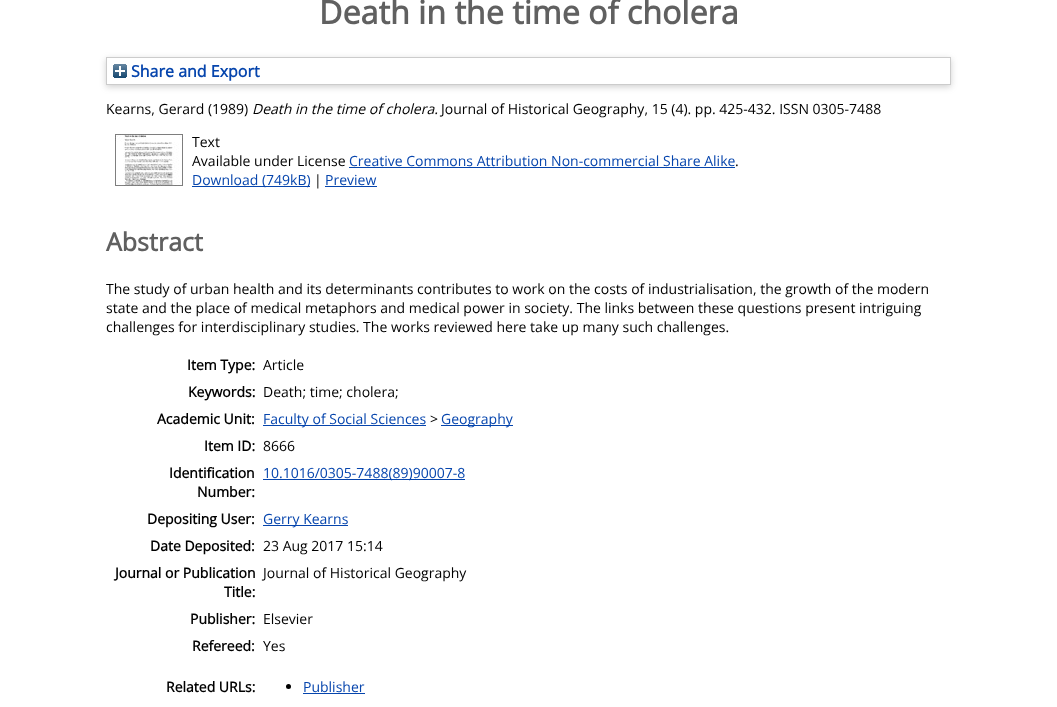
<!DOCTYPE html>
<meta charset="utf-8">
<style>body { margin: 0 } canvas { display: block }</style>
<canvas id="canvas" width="1057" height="707"></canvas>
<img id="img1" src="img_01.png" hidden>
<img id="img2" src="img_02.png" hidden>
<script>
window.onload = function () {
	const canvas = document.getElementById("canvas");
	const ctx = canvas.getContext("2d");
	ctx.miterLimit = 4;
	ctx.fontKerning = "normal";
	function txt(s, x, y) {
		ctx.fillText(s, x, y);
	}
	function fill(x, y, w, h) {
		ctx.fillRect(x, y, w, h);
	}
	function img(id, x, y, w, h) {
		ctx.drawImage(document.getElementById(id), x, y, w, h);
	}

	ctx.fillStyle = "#FFFFFF";
	fill(0, 0, 1057, 707);
	ctx.save();
	ctx.beginPath();
	ctx.moveTo(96, 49);
	ctx.lineTo(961, 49);
	ctx.lineTo(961, 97);
	ctx.lineTo(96, 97);
	ctx.closePath();
	ctx.moveTo(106, 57);
	ctx.lineTo(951, 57);
	ctx.lineTo(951, 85);
	ctx.lineTo(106, 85);
	ctx.closePath();
	ctx.clip("evenodd");
	ctx.fillStyle = "rgba(100, 100, 100, 0.3)";
	ctx.filter = "blur(3px)";
	ctx.beginPath();
	ctx.rect(106, 59, 845, 28);
	ctx.fill();
	ctx.filter = "none";
	ctx.restore();
	ctx.strokeStyle = "#CCCCCC";
	ctx.strokeRect(106.5, 57.5, 844, 27);
	img("img1", 113, 64, 14, 14);
	img("img2", 115, 134, 68, 52);
	ctx.fillStyle = "#0645AD";
	fill(349, 167, 386, 1);
	fill(192, 186, 118, 1);
	fill(325, 186, 52, 1);
	fill(263, 425, 163, 1);
	fill(441, 425, 72, 1);
	fill(263, 479, 202, 1);
	fill(263, 525, 85, 1);
	ctx.fillStyle = "#000000";
	ctx.beginPath();
	ctx.arc(288.5, 686.5, 2.5, 0, Math.PI * 2);
	ctx.fill();
	ctx.fillStyle = "#0645AD";
	fill(303, 693, 62, 1);
	ctx.font = "bold 32.25px Open Sans";
	ctx.fillStyle = "#606060";
	txt("Death in the time of cholera", 319, 24);
	ctx.font = "bold 16px Open Sans";
	ctx.fillStyle = "#0645AD";
	txt("Share and Export", 131, 77);
	ctx.font = "14px Open Sans";
	ctx.fillStyle = "#000000";
	txt("Kearns, Gerard (1989)", 106, 114);
	ctx.font = "italic 14px Open Sans";
	txt("Death in the time of cholera.", 252, 114);
	ctx.font = "14px Open Sans";
	txt("Journal of Historical Geography, 15 (4). pp. 425-432. ISSN 0305-7488", 441, 114);
	txt("Text", 192, 147);
	txt("Available under License", 192, 166);
	ctx.fillStyle = "#0645AD";
	txt("Creative Commons Attribution Non-commercial Share Alike", 349, 166);
	ctx.fillStyle = "#000000";
	txt(".", 735, 166);
	ctx.fillStyle = "#0645AD";
	txt("Download (749kB)", 192, 185);
	ctx.fillStyle = "#000000";
	txt("|", 314, 185);
	ctx.fillStyle = "#0645AD";
	txt("Preview", 325, 185);
	ctx.font = "bold 25px Open Sans";
	ctx.fillStyle = "#606060";
	txt("Abstract", 106, 251);
	ctx.font = "14px Open Sans";
	ctx.fillStyle = "#000000";
	txt("The study of urban health and its determinants contributes to work on the costs of industrialisation, the growth of the modern", 106, 294);
	txt("state and the place of medical metaphors and medical power in society. The links between these questions present intriguing", 106, 313);
	txt("challenges for interdisciplinary studies. The works reviewed here take up many such challenges.", 106, 332);
	ctx.font = "bold 14px Open Sans";
	txt("Item Type:", 187, 370);
	ctx.font = "14px Open Sans";
	txt("Article", 263, 370);
	ctx.font = "bold 14px Open Sans";
	txt("Keywords:", 188, 397);
	ctx.font = "14px Open Sans";
	txt("Death; time; cholera;", 263, 397);
	ctx.font = "bold 14px Open Sans";
	txt("Academic Unit:", 157, 424);
	ctx.font = "14px Open Sans";
	ctx.fillStyle = "#0645AD";
	txt("Faculty of Social Sciences", 263, 424);
	ctx.fillStyle = "#000000";
	txt(">", 430, 424);
	ctx.fillStyle = "#0645AD";
	txt("Geography", 441, 424);
	ctx.font = "bold 14px Open Sans";
	ctx.fillStyle = "#000000";
	txt("Item ID:", 204, 451);
	ctx.font = "14px Open Sans";
	txt("8666", 263, 451);
	ctx.font = "bold 14px Open Sans";
	txt("Identification", 169, 478);
	txt("Number:", 197, 497);
	ctx.font = "14px Open Sans";
	ctx.fillStyle = "#0645AD";
	txt("10.1016/0305-7488(89)90007-8", 263, 478);
	ctx.font = "bold 14px Open Sans";
	ctx.fillStyle = "#000000";
	txt("Depositing User:", 147, 524);
	ctx.font = "14px Open Sans";
	ctx.fillStyle = "#0645AD";
	txt("Gerry Kearns", 263, 524);
	ctx.font = "bold 14px Open Sans";
	ctx.fillStyle = "#000000";
	txt("Date Deposited:", 150, 551);
	ctx.font = "14px Open Sans";
	txt("23 Aug 2017 15:14", 263, 551);
	ctx.font = "bold 14px Open Sans";
	txt("Journal or Publication", 115, 578);
	txt("Title:", 224, 597);
	ctx.font = "14px Open Sans";
	txt("Journal of Historical Geography", 263, 578);
	ctx.font = "bold 14px Open Sans";
	txt("Publisher:", 190, 624);
	ctx.font = "14px Open Sans";
	txt("Elsevier", 263, 624);
	ctx.font = "bold 14px Open Sans";
	txt("Refereed:", 192, 651);
	ctx.font = "14px Open Sans";
	txt("Yes", 263, 651);
	ctx.font = "bold 14px Open Sans";
	txt("Related URLs:", 166, 692);
	ctx.font = "14px Open Sans";
	ctx.fillStyle = "#0645AD";
	txt("Publisher", 303, 692);
};
</script>
